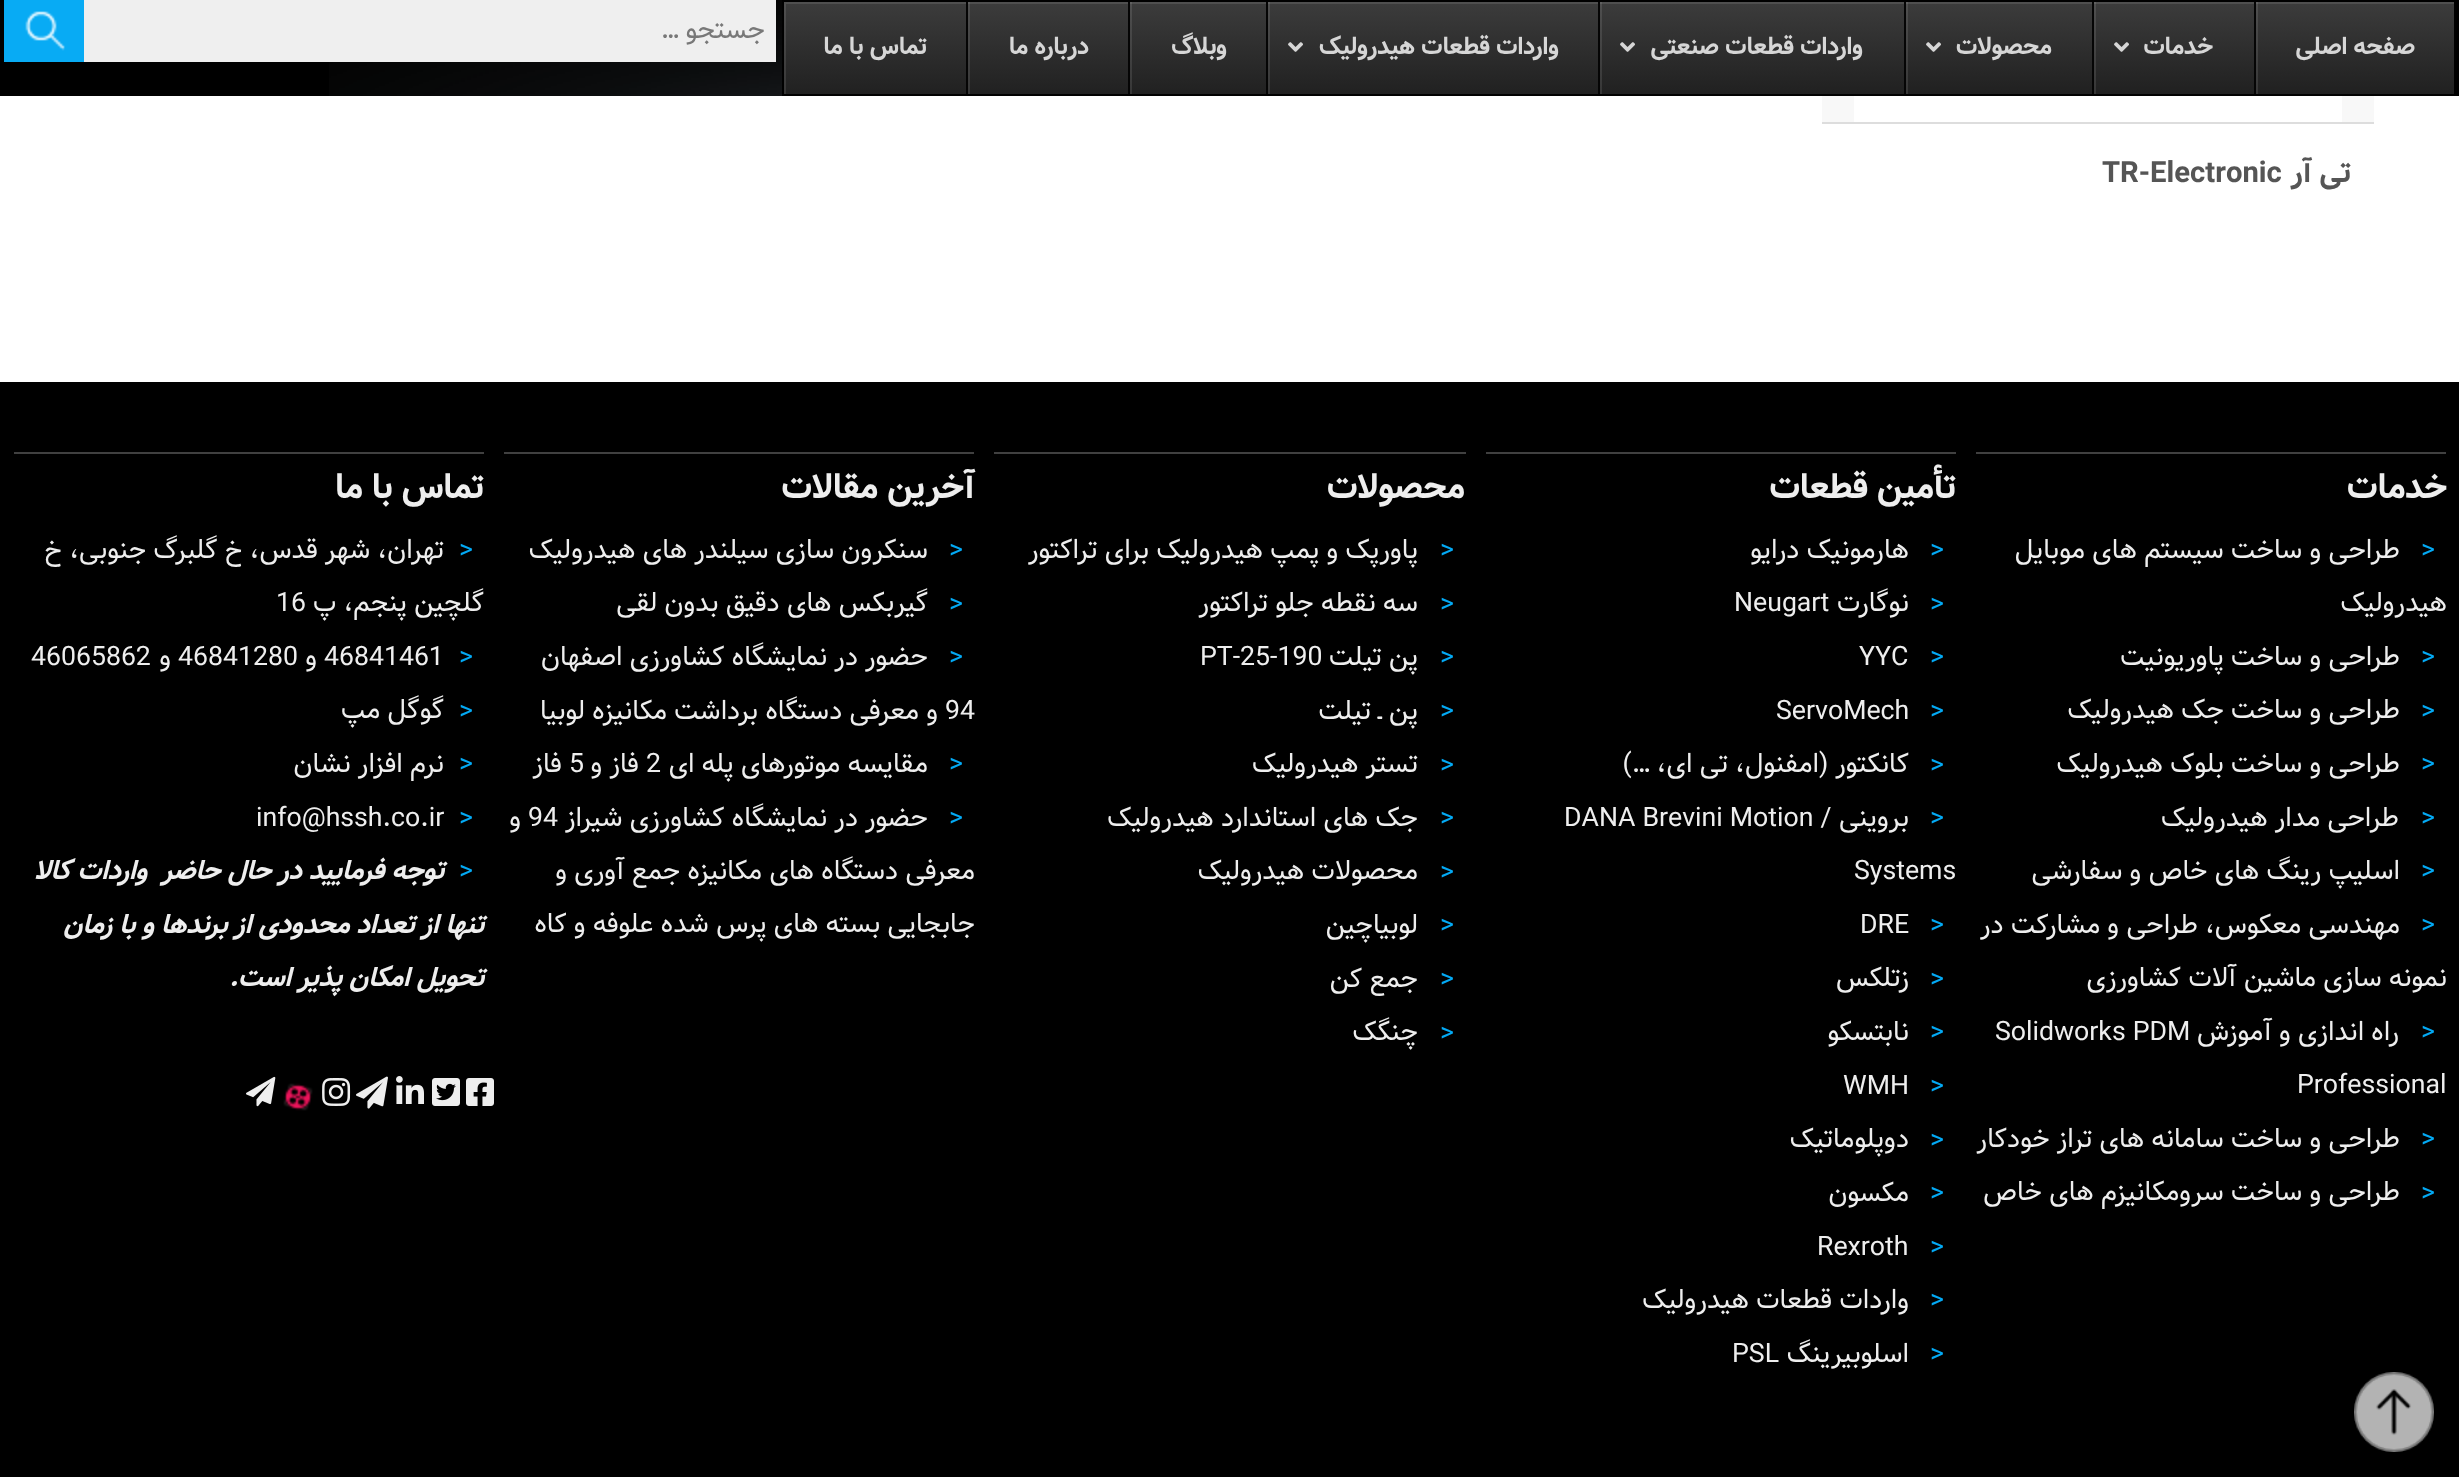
<!DOCTYPE html>
<meta charset="utf-8">
<style>body { margin: 0 } canvas { display: block }</style>
<canvas id="canvas" width="2459" height="1477"></canvas>
<img id="img1" src="img_01.png" hidden>
<img id="img2" src="img_02.png" hidden>
<img id="img3" src="img_03.png" hidden>
<img id="img4" src="img_04.png" hidden>
<img id="img5" src="img_05.png" hidden>
<img id="img6" src="img_06.png" hidden>
<img id="img7" src="img_07.png" hidden>
<img id="img8" src="img_08.png" hidden>
<img id="img9" src="img_09.png" hidden>
<img id="img10" src="img_10.png" hidden>
<img id="img11" src="img_11.png" hidden>
<img id="img12" src="img_12.png" hidden>
<script>
window.onload = function () {
	const canvas = document.getElementById("canvas");
	const ctx = canvas.getContext("2d");
	ctx.miterLimit = 4;
	ctx.fontKerning = "normal";
	function txt(s, x, y) {
		ctx.fillText(s, x, y);
	}
	function fill(x, y, w, h) {
		ctx.fillRect(x, y, w, h);
	}
	function img(id, x, y, w, h) {
		ctx.drawImage(document.getElementById(id), x, y, w, h);
	}
	let gradient;

	ctx.fillStyle = "#FFFFFF";
	fill(0, 0, 2459, 1477);
	ctx.fillStyle = "#000000";
	fill(0, 0, 2459, 96);
	img("img1", 329, 0, 1488, 96);
	gradient = ctx.createLinearGradient(1619, -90, 1619, 2);
	gradient.addColorStop(0, "rgba(61, 61, 61, 0.98)");
	gradient.addColorStop(1, "rgba(33, 33, 33, 0.98)");
	ctx.fillStyle = gradient;
	fill(782, 0, 1674, 2);
	gradient = ctx.createLinearGradient(1619, 2, 1619, 94);
	gradient.addColorStop(0, "rgba(61, 61, 61, 0.98)");
	gradient.addColorStop(1, "rgba(33, 33, 33, 0.98)");
	ctx.fillStyle = gradient;
	fill(782, 2, 1674, 92);
	gradient = ctx.createLinearGradient(1619, 94, 1619, 186);
	gradient.addColorStop(0, "rgba(61, 61, 61, 0.98)");
	gradient.addColorStop(1, "rgba(33, 33, 33, 0.98)");
	ctx.fillStyle = gradient;
	fill(782, 94, 1674, 2);
	ctx.save();
	ctx.beginPath();
	ctx.rect(784, 2, 1670, 92);
	ctx.clip();
	ctx.fillStyle = "rgba(255, 255, 255, 0.1)";
	ctx.beginPath();
	ctx.moveTo(586, -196);
	ctx.lineTo(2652, -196);
	ctx.lineTo(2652, 292);
	ctx.lineTo(586, 292);
	ctx.closePath();
	ctx.moveTo(786, 4);
	ctx.lineTo(2456, 4);
	ctx.lineTo(2456, 96);
	ctx.lineTo(786, 96);
	ctx.closePath();
	ctx.fill("evenodd");
	ctx.restore();
	ctx.strokeStyle = "rgba(0, 0, 0, 0.98)";
	ctx.lineWidth = 2;
	ctx.strokeRect(783, 1, 1672, 94);
	ctx.fillStyle = "rgba(255, 255, 255, 0.1)";
	fill(2256, 2, 2, 92);
	ctx.fillStyle = "#050505";
	fill(2254, 2, 2, 92);
	ctx.fillStyle = "rgba(255, 255, 255, 0.1)";
	fill(2094, 2, 2, 92);
	ctx.fillStyle = "#050505";
	fill(2092, 2, 2, 92);
	img("img2", 2114, 42, 15, 10);
	ctx.fillStyle = "rgba(255, 255, 255, 0.1)";
	fill(1906, 2, 2, 92);
	ctx.fillStyle = "#050505";
	fill(1904, 2, 2, 92);
	img("img2", 1926, 42, 15, 10);
	ctx.fillStyle = "rgba(255, 255, 255, 0.1)";
	fill(1600, 2, 2, 92);
	ctx.fillStyle = "#050505";
	fill(1598, 2, 2, 92);
	img("img2", 1620, 42, 15, 10);
	ctx.fillStyle = "rgba(255, 255, 255, 0.1)";
	fill(1268, 2, 2, 92);
	ctx.fillStyle = "#050505";
	fill(1266, 2, 2, 92);
	img("img3", 1288, 42, 15, 10);
	ctx.fillStyle = "rgba(255, 255, 255, 0.1)";
	fill(1130, 2, 2, 92);
	ctx.fillStyle = "#050505";
	fill(1128, 2, 2, 92);
	ctx.fillStyle = "rgba(255, 255, 255, 0.1)";
	fill(968, 2, 2, 92);
	ctx.fillStyle = "#050505";
	fill(966, 2, 2, 92);
	ctx.fillStyle = "#EFEFEF";
	fill(84, 0, 692, 62);
	ctx.fillStyle = "#08ABF4";
	fill(4, 0, 80, 62);
	img("img4", 25, 11, 40, 40);
	ctx.fillStyle = "#F8F8F8";
	fill(1822, 96, 552, 26);
	ctx.fillStyle = "#DDDDDD";
	fill(1822, 122, 552, 2);
	ctx.fillStyle = "#FFFFFF";
	fill(1854, 96, 488, 26);
	ctx.fillStyle = "#000000";
	fill(0, 382, 2459, 1095);
	ctx.fillStyle = "#404040";
	fill(1976, 452, 470, 2);
	fill(1486, 452, 470, 2);
	fill(994, 452, 472, 2);
	fill(504, 452, 470, 2);
	fill(14, 452, 470, 2);
	img("img5", 466, 1078, 28, 28);
	img("img6", 432, 1078, 28, 28);
	img("img7", 396, 1076, 28, 28);
	img("img8", 356, 1076, 32, 33);
	img("img9", 322, 1078, 29, 28);
	img("img10", 283, 1083, 30, 28);
	img("img11", 246, 1076, 30, 31);
	img("img12", 2354, 1372, 80, 80);
	ctx.direction = "rtl";
	ctx.font = "bold 24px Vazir";
	ctx.fillStyle = "#D6D6D6";
	txt("صفحه اصلی", 2415, 54);
	txt("خدمات", 2213, 54);
	txt("محصولات", 2052, 54);
	txt("واردات قطعات صنعتی", 1863, 54);
	txt("واردات قطعات هیدرولیک", 1559, 54);
	txt("وبلاگ", 1227, 54);
	txt("درباره ما", 1089, 54);
	txt("تماس با ما", 927, 54);
	ctx.font = "26.7px Vazir";
	ctx.fillStyle = "#787878";
	txt("جستجو …", 765, 38);
	ctx.font = "bold 29.25px Vazir";
	ctx.fillStyle = "#555555";
	txt("تی آر", 2351, 182);
	ctx.direction = "ltr";
	txt("TR-Electronic", 2102, 182);
	ctx.direction = "rtl";
	ctx.font = "bold 34.5px Vazir";
	ctx.fillStyle = "#EEEEEE";
	txt("خدمات", 2447, 498);
	ctx.letterSpacing = "-3px";
	ctx.direction = "ltr";
	ctx.font = "26.7px Vazir";
	ctx.fillStyle = "#03A9F4";
	txt(">", 2421, 558);
	ctx.letterSpacing = "0px";
	ctx.direction = "rtl";
	ctx.fillStyle = "#EEEEEE";
	txt("طراحی و ساخت سیستم های موبایل", 2400, 558);
	txt("هیدرولیک", 2447, 611);
	ctx.letterSpacing = "-3px";
	ctx.direction = "ltr";
	ctx.fillStyle = "#03A9F4";
	txt(">", 2421, 665);
	ctx.letterSpacing = "0px";
	ctx.direction = "rtl";
	ctx.fillStyle = "#EEEEEE";
	txt("طراحی و ساخت پاوریونیت", 2400, 665);
	ctx.letterSpacing = "-3px";
	ctx.direction = "ltr";
	ctx.fillStyle = "#03A9F4";
	txt(">", 2421, 719);
	ctx.letterSpacing = "0px";
	ctx.direction = "rtl";
	ctx.fillStyle = "#EEEEEE";
	txt("طراحی و ساخت جک هیدرولیک", 2400, 718);
	ctx.letterSpacing = "-3px";
	ctx.direction = "ltr";
	ctx.fillStyle = "#03A9F4";
	txt(">", 2421, 772);
	ctx.letterSpacing = "0px";
	ctx.direction = "rtl";
	ctx.fillStyle = "#EEEEEE";
	txt("طراحی و ساخت بلوک هیدرولیک", 2400, 772);
	ctx.letterSpacing = "-3px";
	ctx.direction = "ltr";
	ctx.fillStyle = "#03A9F4";
	txt(">", 2421, 826);
	ctx.letterSpacing = "0px";
	ctx.direction = "rtl";
	ctx.fillStyle = "#EEEEEE";
	txt("طراحی مدار هیدرولیک", 2399, 826);
	ctx.letterSpacing = "-3px";
	ctx.direction = "ltr";
	ctx.fillStyle = "#03A9F4";
	txt(">", 2421, 879);
	ctx.letterSpacing = "0px";
	ctx.direction = "rtl";
	ctx.fillStyle = "#EEEEEE";
	txt("اسلیپ رینگ های خاص و سفارشی", 2400, 879);
	ctx.letterSpacing = "-3px";
	ctx.direction = "ltr";
	ctx.fillStyle = "#03A9F4";
	txt(">", 2421, 933);
	ctx.letterSpacing = "0px";
	ctx.direction = "rtl";
	ctx.fillStyle = "#EEEEEE";
	txt("مهندسی معکوس، طراحی و مشارکت در", 2400, 933);
	txt("نمونه سازی ماشین آلات کشاورزی", 2447, 986);
	ctx.letterSpacing = "-3px";
	ctx.direction = "ltr";
	ctx.fillStyle = "#03A9F4";
	txt(">", 2421, 1040);
	ctx.letterSpacing = "0px";
	ctx.direction = "rtl";
	ctx.fillStyle = "#EEEEEE";
	txt("راه اندازی و آموزش", 2399, 1040);
	ctx.direction = "ltr";
	txt("Solidworks PDM", 1995, 1040);
	txt("Professional", 2297, 1093);
	ctx.letterSpacing = "-3px";
	ctx.fillStyle = "#03A9F4";
	txt(">", 2421, 1147);
	ctx.letterSpacing = "0px";
	ctx.direction = "rtl";
	ctx.fillStyle = "#EEEEEE";
	txt("طراحی و ساخت سامانه های تراز خودکار", 2400, 1147);
	ctx.letterSpacing = "-3px";
	ctx.direction = "ltr";
	ctx.fillStyle = "#03A9F4";
	txt(">", 2421, 1201);
	ctx.letterSpacing = "0px";
	ctx.direction = "rtl";
	ctx.fillStyle = "#EEEEEE";
	txt("طراحی و ساخت سرومکانیزم های خاص", 2400, 1200);
	ctx.font = "bold 34.5px Vazir";
	txt("تأمین قطعات", 1956, 498);
	ctx.letterSpacing = "-3px";
	ctx.direction = "ltr";
	ctx.font = "26.7px Vazir";
	ctx.fillStyle = "#03A9F4";
	txt(">", 1930, 558);
	ctx.letterSpacing = "0px";
	ctx.direction = "rtl";
	ctx.fillStyle = "#EEEEEE";
	txt("هارمونیک درایو", 1909, 558);
	ctx.letterSpacing = "-3px";
	ctx.direction = "ltr";
	ctx.fillStyle = "#03A9F4";
	txt(">", 1930, 612);
	ctx.letterSpacing = "0px";
	ctx.direction = "rtl";
	ctx.fillStyle = "#EEEEEE";
	txt("نوگارت", 1909, 611);
	ctx.direction = "ltr";
	txt("Neugart", 1734, 611);
	ctx.letterSpacing = "-3px";
	ctx.fillStyle = "#03A9F4";
	txt(">", 1930, 665);
	ctx.letterSpacing = "0px";
	ctx.fillStyle = "#EEEEEE";
	txt("YYC", 1859, 665);
	ctx.letterSpacing = "-3px";
	ctx.fillStyle = "#03A9F4";
	txt(">", 1930, 719);
	ctx.letterSpacing = "0px";
	ctx.fillStyle = "#EEEEEE";
	txt("ServoMech", 1776, 719);
	ctx.letterSpacing = "-3px";
	ctx.fillStyle = "#03A9F4";
	txt(">", 1930, 773);
	ctx.letterSpacing = "0px";
	ctx.direction = "rtl";
	ctx.fillStyle = "#EEEEEE";
	txt("کانکتور (امفنول، تی ای، …)", 1909, 772);
	ctx.letterSpacing = "-3px";
	ctx.direction = "ltr";
	ctx.fillStyle = "#03A9F4";
	txt(">", 1930, 826);
	ctx.letterSpacing = "0px";
	ctx.direction = "rtl";
	ctx.fillStyle = "#EEEEEE";
	txt("بروینی /", 1909, 826);
	ctx.direction = "ltr";
	txt("DANA Brevini Motion", 1564, 826);
	txt("Systems", 1854, 879);
	ctx.letterSpacing = "-3px";
	ctx.fillStyle = "#03A9F4";
	txt(">", 1930, 933);
	ctx.letterSpacing = "0px";
	ctx.fillStyle = "#EEEEEE";
	txt("DRE", 1860, 933);
	ctx.letterSpacing = "-3px";
	ctx.fillStyle = "#03A9F4";
	txt(">", 1930, 987);
	ctx.letterSpacing = "0px";
	ctx.direction = "rtl";
	ctx.fillStyle = "#EEEEEE";
	txt("زتلکس", 1909, 986);
	ctx.letterSpacing = "-3px";
	ctx.direction = "ltr";
	ctx.fillStyle = "#03A9F4";
	txt(">", 1930, 1040);
	ctx.letterSpacing = "0px";
	ctx.direction = "rtl";
	ctx.fillStyle = "#EEEEEE";
	txt("نابتسکو", 1909, 1040);
	ctx.letterSpacing = "-3px";
	ctx.direction = "ltr";
	ctx.fillStyle = "#03A9F4";
	txt(">", 1930, 1094);
	ctx.letterSpacing = "0px";
	ctx.fillStyle = "#EEEEEE";
	txt("WMH", 1843, 1094);
	ctx.letterSpacing = "-3px";
	ctx.fillStyle = "#03A9F4";
	txt(">", 1930, 1148);
	ctx.letterSpacing = "0px";
	ctx.direction = "rtl";
	ctx.fillStyle = "#EEEEEE";
	txt("دوپلوماتیک", 1909, 1147);
	ctx.letterSpacing = "-3px";
	ctx.direction = "ltr";
	ctx.fillStyle = "#03A9F4";
	txt(">", 1930, 1201);
	ctx.letterSpacing = "0px";
	ctx.direction = "rtl";
	ctx.fillStyle = "#EEEEEE";
	txt("مکسون", 1909, 1201);
	ctx.letterSpacing = "-3px";
	ctx.direction = "ltr";
	ctx.fillStyle = "#03A9F4";
	txt(">", 1930, 1255);
	ctx.letterSpacing = "0px";
	ctx.fillStyle = "#EEEEEE";
	txt("Rexroth", 1817, 1255);
	ctx.letterSpacing = "-3px";
	ctx.fillStyle = "#03A9F4";
	txt(">", 1930, 1308);
	ctx.letterSpacing = "0px";
	ctx.direction = "rtl";
	ctx.fillStyle = "#EEEEEE";
	txt("واردات قطعات هیدرولیک", 1909, 1308);
	ctx.letterSpacing = "-3px";
	ctx.direction = "ltr";
	ctx.fillStyle = "#03A9F4";
	txt(">", 1930, 1362);
	ctx.letterSpacing = "0px";
	ctx.direction = "rtl";
	ctx.fillStyle = "#EEEEEE";
	txt("اسلوبیرینگ", 1909, 1362);
	ctx.direction = "ltr";
	txt("PSL", 1732, 1362);
	ctx.direction = "rtl";
	ctx.font = "bold 34.5px Vazir";
	txt("محصولات", 1465, 498);
	ctx.letterSpacing = "-3px";
	ctx.direction = "ltr";
	ctx.font = "26.7px Vazir";
	ctx.fillStyle = "#03A9F4";
	txt(">", 1440, 558);
	ctx.letterSpacing = "0px";
	ctx.direction = "rtl";
	ctx.fillStyle = "#EEEEEE";
	txt("پاورپک و پمپ هیدرولیک برای تراکتور", 1418, 558);
	ctx.letterSpacing = "-3px";
	ctx.direction = "ltr";
	ctx.fillStyle = "#03A9F4";
	txt(">", 1440, 612);
	ctx.letterSpacing = "0px";
	ctx.direction = "rtl";
	ctx.fillStyle = "#EEEEEE";
	txt("سه نقطه جلو تراکتور", 1418, 611);
	ctx.letterSpacing = "-3px";
	ctx.direction = "ltr";
	ctx.fillStyle = "#03A9F4";
	txt(">", 1440, 665);
	ctx.letterSpacing = "0px";
	ctx.direction = "rtl";
	ctx.fillStyle = "#EEEEEE";
	txt("پن تیلت", 1418, 665);
	ctx.direction = "ltr";
	txt("PT-25-190", 1200, 665);
	ctx.letterSpacing = "-3px";
	ctx.fillStyle = "#03A9F4";
	txt(">", 1440, 719);
	ctx.letterSpacing = "0px";
	ctx.direction = "rtl";
	ctx.fillStyle = "#EEEEEE";
	txt("پن ـ تیلت", 1418, 719);
	ctx.letterSpacing = "-3px";
	ctx.direction = "ltr";
	ctx.fillStyle = "#03A9F4";
	txt(">", 1440, 773);
	ctx.letterSpacing = "0px";
	ctx.direction = "rtl";
	ctx.fillStyle = "#EEEEEE";
	txt("تستر هیدرولیک", 1418, 772);
	ctx.letterSpacing = "-3px";
	ctx.direction = "ltr";
	ctx.fillStyle = "#03A9F4";
	txt(">", 1440, 826);
	ctx.letterSpacing = "0px";
	ctx.direction = "rtl";
	ctx.fillStyle = "#EEEEEE";
	txt("جک های استاندارد هیدرولیک", 1418, 826);
	ctx.letterSpacing = "-3px";
	ctx.direction = "ltr";
	ctx.fillStyle = "#03A9F4";
	txt(">", 1440, 880);
	ctx.letterSpacing = "0px";
	ctx.direction = "rtl";
	ctx.fillStyle = "#EEEEEE";
	txt("محصولات هیدرولیک", 1418, 879);
	ctx.letterSpacing = "-3px";
	ctx.direction = "ltr";
	ctx.fillStyle = "#03A9F4";
	txt(">", 1440, 933);
	ctx.letterSpacing = "0px";
	ctx.direction = "rtl";
	ctx.fillStyle = "#EEEEEE";
	txt("لوبیاچین", 1418, 933);
	ctx.letterSpacing = "-3px";
	ctx.direction = "ltr";
	ctx.fillStyle = "#03A9F4";
	txt(">", 1440, 987);
	ctx.letterSpacing = "0px";
	ctx.direction = "rtl";
	ctx.fillStyle = "#EEEEEE";
	txt("جمع کن", 1418, 987);
	ctx.letterSpacing = "-3px";
	ctx.direction = "ltr";
	ctx.fillStyle = "#03A9F4";
	txt(">", 1440, 1041);
	ctx.letterSpacing = "0px";
	ctx.direction = "rtl";
	ctx.fillStyle = "#EEEEEE";
	txt("چنگک", 1418, 1040);
	ctx.font = "bold 34.5px Vazir";
	txt("آخرین مقالات", 975, 498);
	ctx.letterSpacing = "-3px";
	ctx.direction = "ltr";
	ctx.font = "26.7px Vazir";
	ctx.fillStyle = "#03A9F4";
	txt(">", 949, 558);
	ctx.letterSpacing = "0px";
	ctx.direction = "rtl";
	ctx.fillStyle = "#EEEEEE";
	txt("سنکرون سازی سیلندر های هیدرولیک", 928, 558);
	ctx.letterSpacing = "-3px";
	ctx.direction = "ltr";
	ctx.fillStyle = "#03A9F4";
	txt(">", 949, 612);
	ctx.letterSpacing = "0px";
	ctx.direction = "rtl";
	ctx.fillStyle = "#EEEEEE";
	txt("گیربکس های دقیق بدون لقی", 928, 611);
	ctx.letterSpacing = "-3px";
	ctx.direction = "ltr";
	ctx.fillStyle = "#03A9F4";
	txt(">", 949, 665);
	ctx.letterSpacing = "0px";
	ctx.direction = "rtl";
	ctx.fillStyle = "#EEEEEE";
	txt("حضور در نمایشگاه کشاورزی اصفهان", 928, 665);
	ctx.direction = "ltr";
	txt("94", 945, 719);
	ctx.direction = "rtl";
	txt("و معرفی دستگاه برداشت مکانیزه لوبیا", 938, 719);
	ctx.letterSpacing = "-3px";
	ctx.direction = "ltr";
	ctx.fillStyle = "#03A9F4";
	txt(">", 949, 772);
	ctx.letterSpacing = "0px";
	ctx.direction = "rtl";
	ctx.fillStyle = "#EEEEEE";
	txt("مقایسه موتورهای پله ای", 928, 772);
	ctx.direction = "ltr";
	txt("2", 646, 772);
	ctx.direction = "rtl";
	txt("فاز و", 639, 772);
	ctx.direction = "ltr";
	txt("5", 569, 772);
	ctx.direction = "rtl";
	txt("فاز", 562, 772);
	ctx.letterSpacing = "-3px";
	ctx.direction = "ltr";
	ctx.fillStyle = "#03A9F4";
	txt(">", 949, 826);
	ctx.letterSpacing = "0px";
	ctx.direction = "rtl";
	ctx.fillStyle = "#EEEEEE";
	txt("حضور در نمایشگاه کشاورزی شیراز", 928, 826);
	ctx.direction = "ltr";
	txt("94", 528, 826);
	ctx.direction = "rtl";
	txt("و", 521, 826);
	txt("معرفی دستگاه های مکانیزه جمع آوری و", 975, 879);
	txt("جابجایی بسته های پرس شده علوفه و کاه", 975, 932);
	ctx.font = "bold 34.5px Vazir";
	txt("تماس با ما", 484, 498);
	ctx.letterSpacing = "-3px";
	ctx.direction = "ltr";
	ctx.font = "26.7px Vazir";
	ctx.fillStyle = "#03A9F4";
	txt(">", 459, 558);
	ctx.letterSpacing = "0px";
	ctx.direction = "rtl";
	ctx.fillStyle = "#EEEEEE";
	txt("تهران، شهر قدس، خ گلبرگ جنوبی، خ", 444, 558);
	txt("گلچین پنجم، پ", 484, 611);
	ctx.direction = "ltr";
	txt("16", 276, 611);
	ctx.letterSpacing = "-3px";
	ctx.fillStyle = "#03A9F4";
	txt(">", 459, 665);
	ctx.letterSpacing = "0px";
	ctx.fillStyle = "#EEEEEE";
	txt("46841461", 324, 665);
	ctx.direction = "rtl";
	txt("و", 317, 665);
	ctx.direction = "ltr";
	txt("46841280", 178, 665);
	ctx.direction = "rtl";
	txt("و", 171, 665);
	ctx.direction = "ltr";
	txt("46065862", 31, 665);
	ctx.letterSpacing = "-3px";
	ctx.fillStyle = "#03A9F4";
	txt(">", 459, 719);
	ctx.letterSpacing = "0px";
	ctx.direction = "rtl";
	ctx.fillStyle = "#EEEEEE";
	txt("گوگل مپ", 444, 718);
	ctx.letterSpacing = "-3px";
	ctx.direction = "ltr";
	ctx.fillStyle = "#03A9F4";
	txt(">", 459, 772);
	ctx.letterSpacing = "0px";
	ctx.direction = "rtl";
	ctx.fillStyle = "#EEEEEE";
	txt("نرم افزار نشان", 444, 772);
	ctx.letterSpacing = "-3px";
	ctx.direction = "ltr";
	ctx.fillStyle = "#03A9F4";
	txt(">", 459, 826);
	ctx.letterSpacing = "0px";
	ctx.fillStyle = "#EEEEEE";
	txt("info@hssh.co.ir", 256, 826);
	ctx.letterSpacing = "-3px";
	ctx.fillStyle = "#03A9F4";
	txt(">", 459, 879);
	ctx.letterSpacing = "0px";
	ctx.direction = "rtl";
	ctx.font = "italic bold 26.7px Vazir";
	ctx.fillStyle = "#EEEEEE";
	txt("توجه فرمایید در حال حاضر  واردات کالا", 444, 879);
	txt("تنها از تعداد محدودی از برندها و با زمان", 484, 933);
	txt("تحویل امکان پذیر است.", 484, 986);
};
</script>
